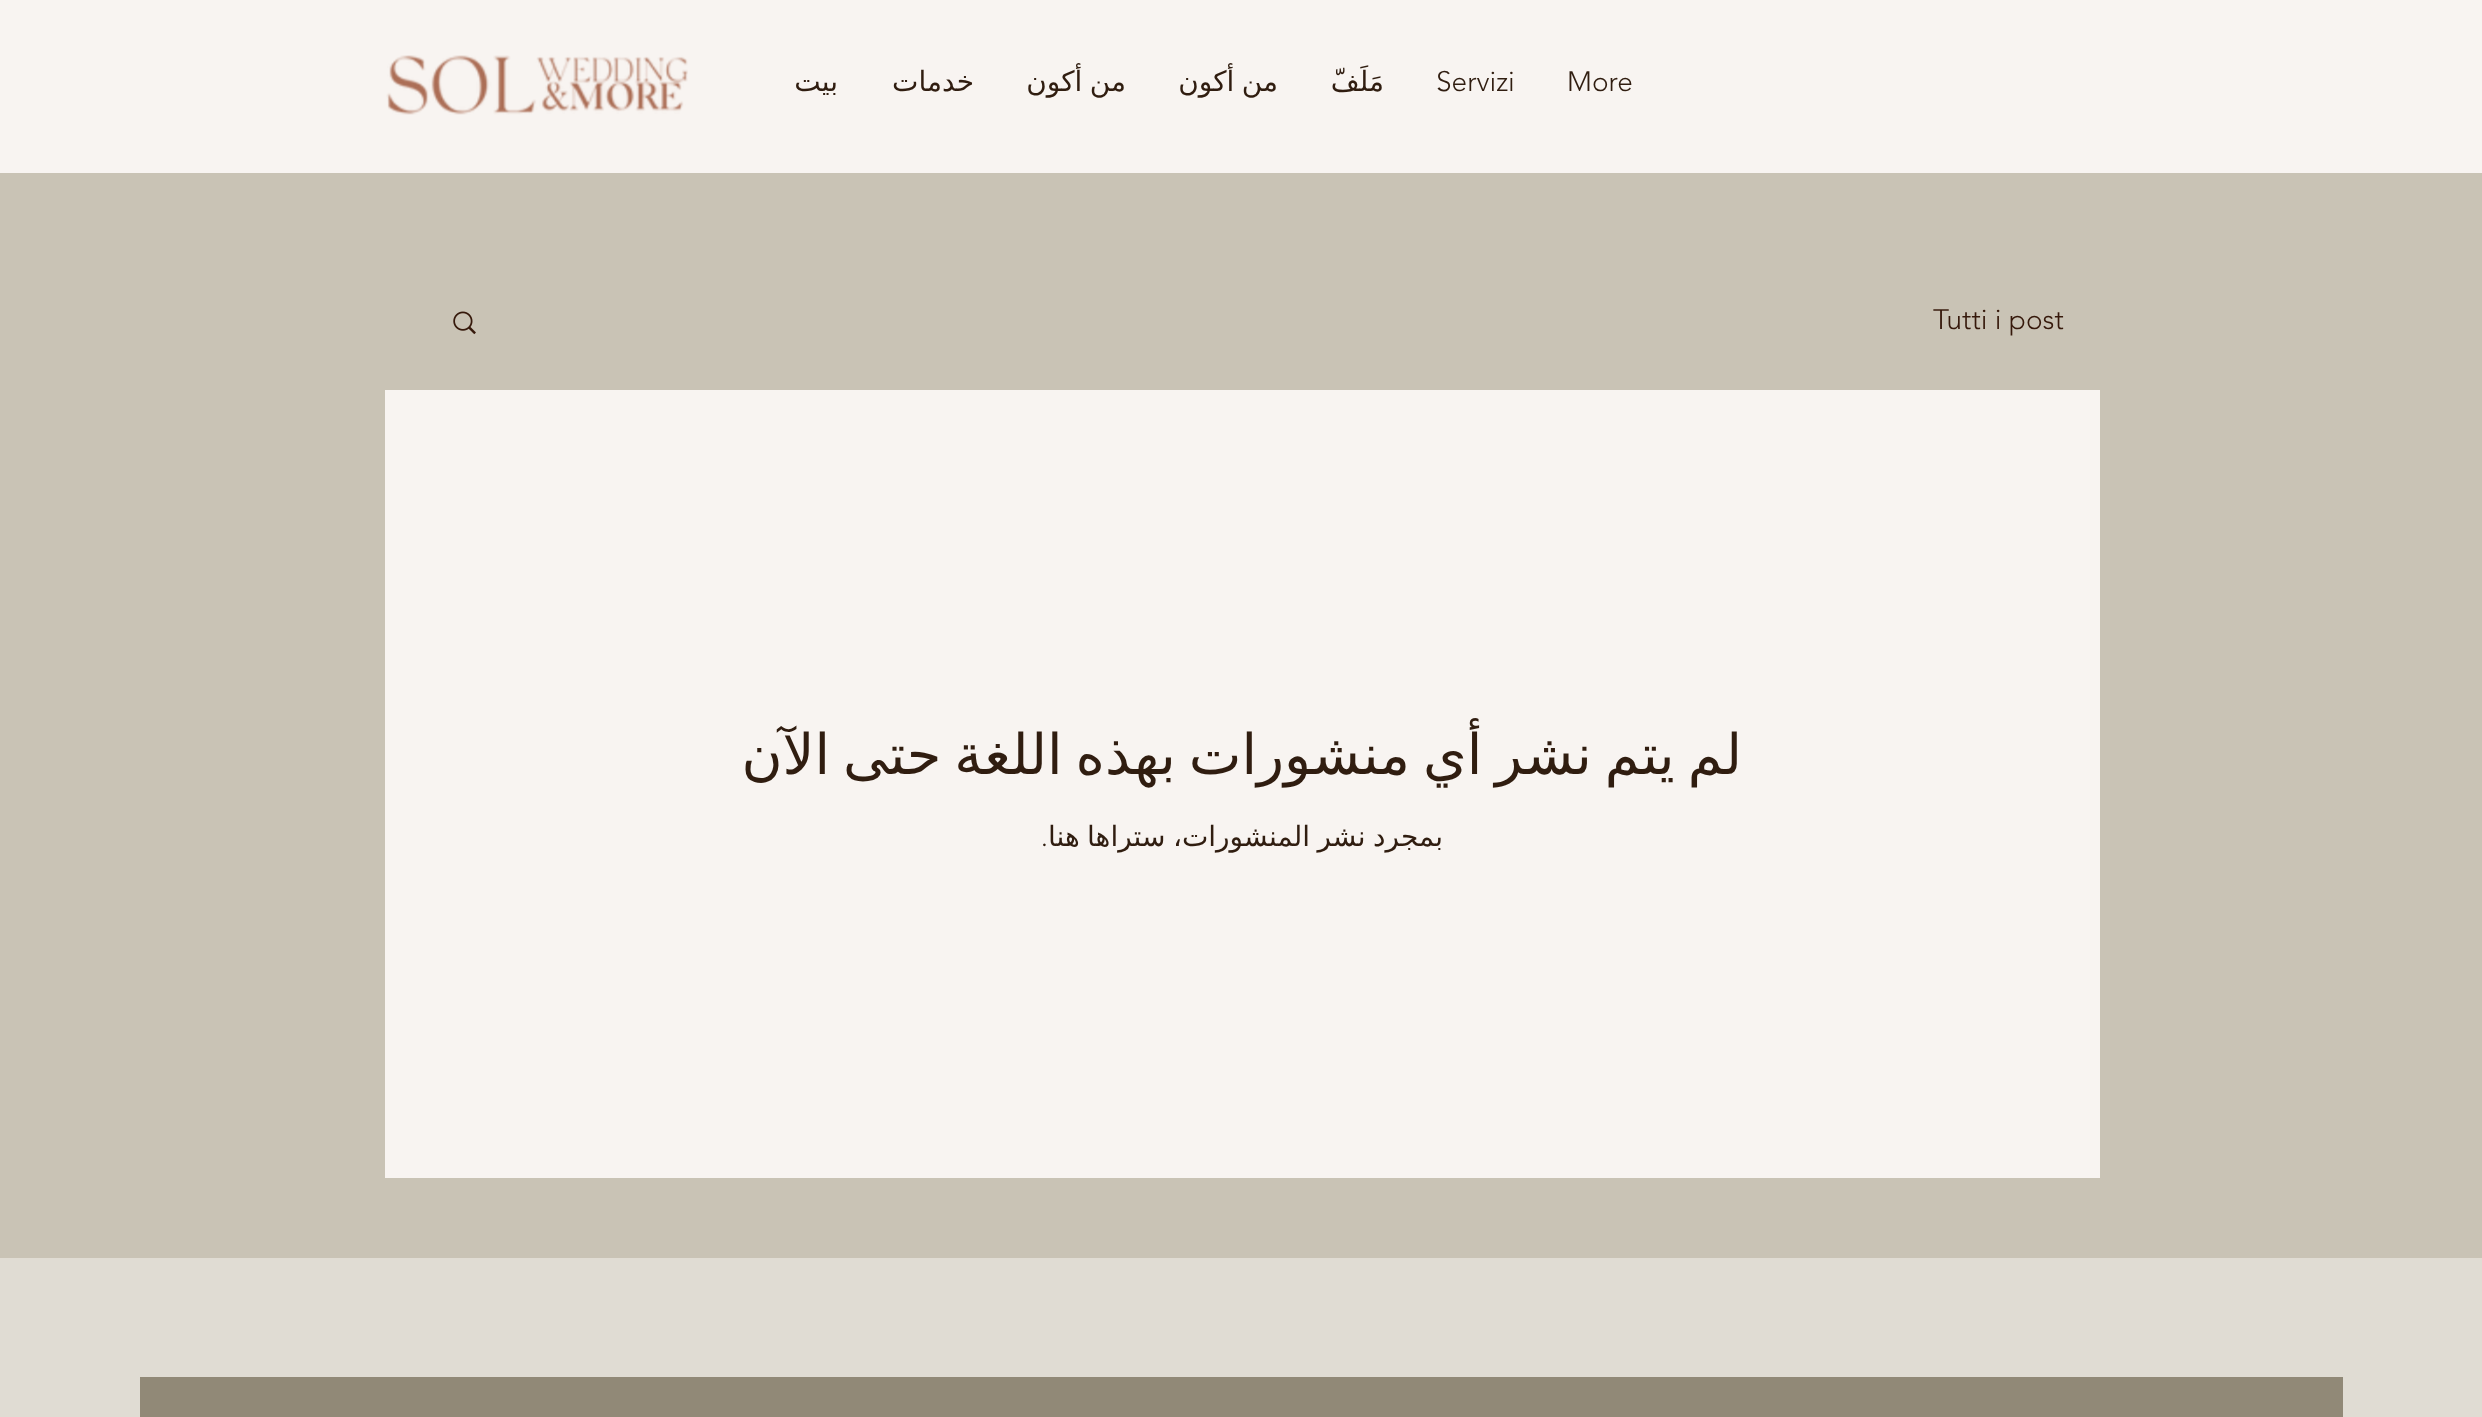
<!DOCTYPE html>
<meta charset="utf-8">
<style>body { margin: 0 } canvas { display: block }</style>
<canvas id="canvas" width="2482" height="1417"></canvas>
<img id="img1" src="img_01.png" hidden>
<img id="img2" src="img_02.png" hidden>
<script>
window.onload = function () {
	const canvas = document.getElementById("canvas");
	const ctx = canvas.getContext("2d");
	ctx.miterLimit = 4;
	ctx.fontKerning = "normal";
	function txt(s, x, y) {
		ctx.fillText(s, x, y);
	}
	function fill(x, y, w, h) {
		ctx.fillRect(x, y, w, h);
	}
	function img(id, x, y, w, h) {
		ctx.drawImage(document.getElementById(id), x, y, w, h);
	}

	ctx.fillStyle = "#C9C3B5";
	fill(0, 0, 2482, 1417);
	ctx.fillStyle = "#F8F4F1";
	fill(0, 0, 2482, 173);
	img("img1", 386, 55, 302, 60);
	img("img2", 453, 311, 23, 24);
	fill(385, 390, 1715, 788);
	ctx.fillStyle = "#E0DCD3";
	fill(0, 1258, 2482, 159);
	ctx.fillStyle = "#918977";
	fill(140, 1377, 2203, 40);
	ctx.font = "300 28px 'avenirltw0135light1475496'";
	ctx.fillStyle = "#301D10";
	txt("More", 1567, 91);
	txt("Servizi", 1436, 91);
	ctx.direction = "rtl";
	ctx.font = "28px DejaVu Sans";
	txt("مَلَفّ", 1384, 91);
	ctx.wordSpacing = "-1.5px";
	txt("من أكون", 1278, 91);
	txt("من أكون", 1126, 91);
	ctx.wordSpacing = "0px";
	txt("خدمات", 974, 91);
	txt("بيت", 838, 91);
	ctx.direction = "ltr";
	ctx.font = "300 28px 'avenirltw0135light1475496'";
	ctx.fillStyle = "#36190B";
	txt("Tutti i post", 1933, 329);
	ctx.wordSpacing = "-4.75px";
	ctx.direction = "rtl";
	ctx.font = "56px DejaVu Sans";
	ctx.fillStyle = "#301D10";
	txt("لم يتم نشر أي منشورات بهذه اللغة حتى الآن", 1742, 774);
	ctx.wordSpacing = "-1.5px";
	ctx.font = "28px DejaVu Sans";
	txt("بمجرد نشر المنشورات، ستراها هنا", 1443, 846);
	ctx.wordSpacing = "0px";
	ctx.font = "300 28px 'avenirltw0135light1475496'";
	txt(".", 1048, 846);
};
</script>
